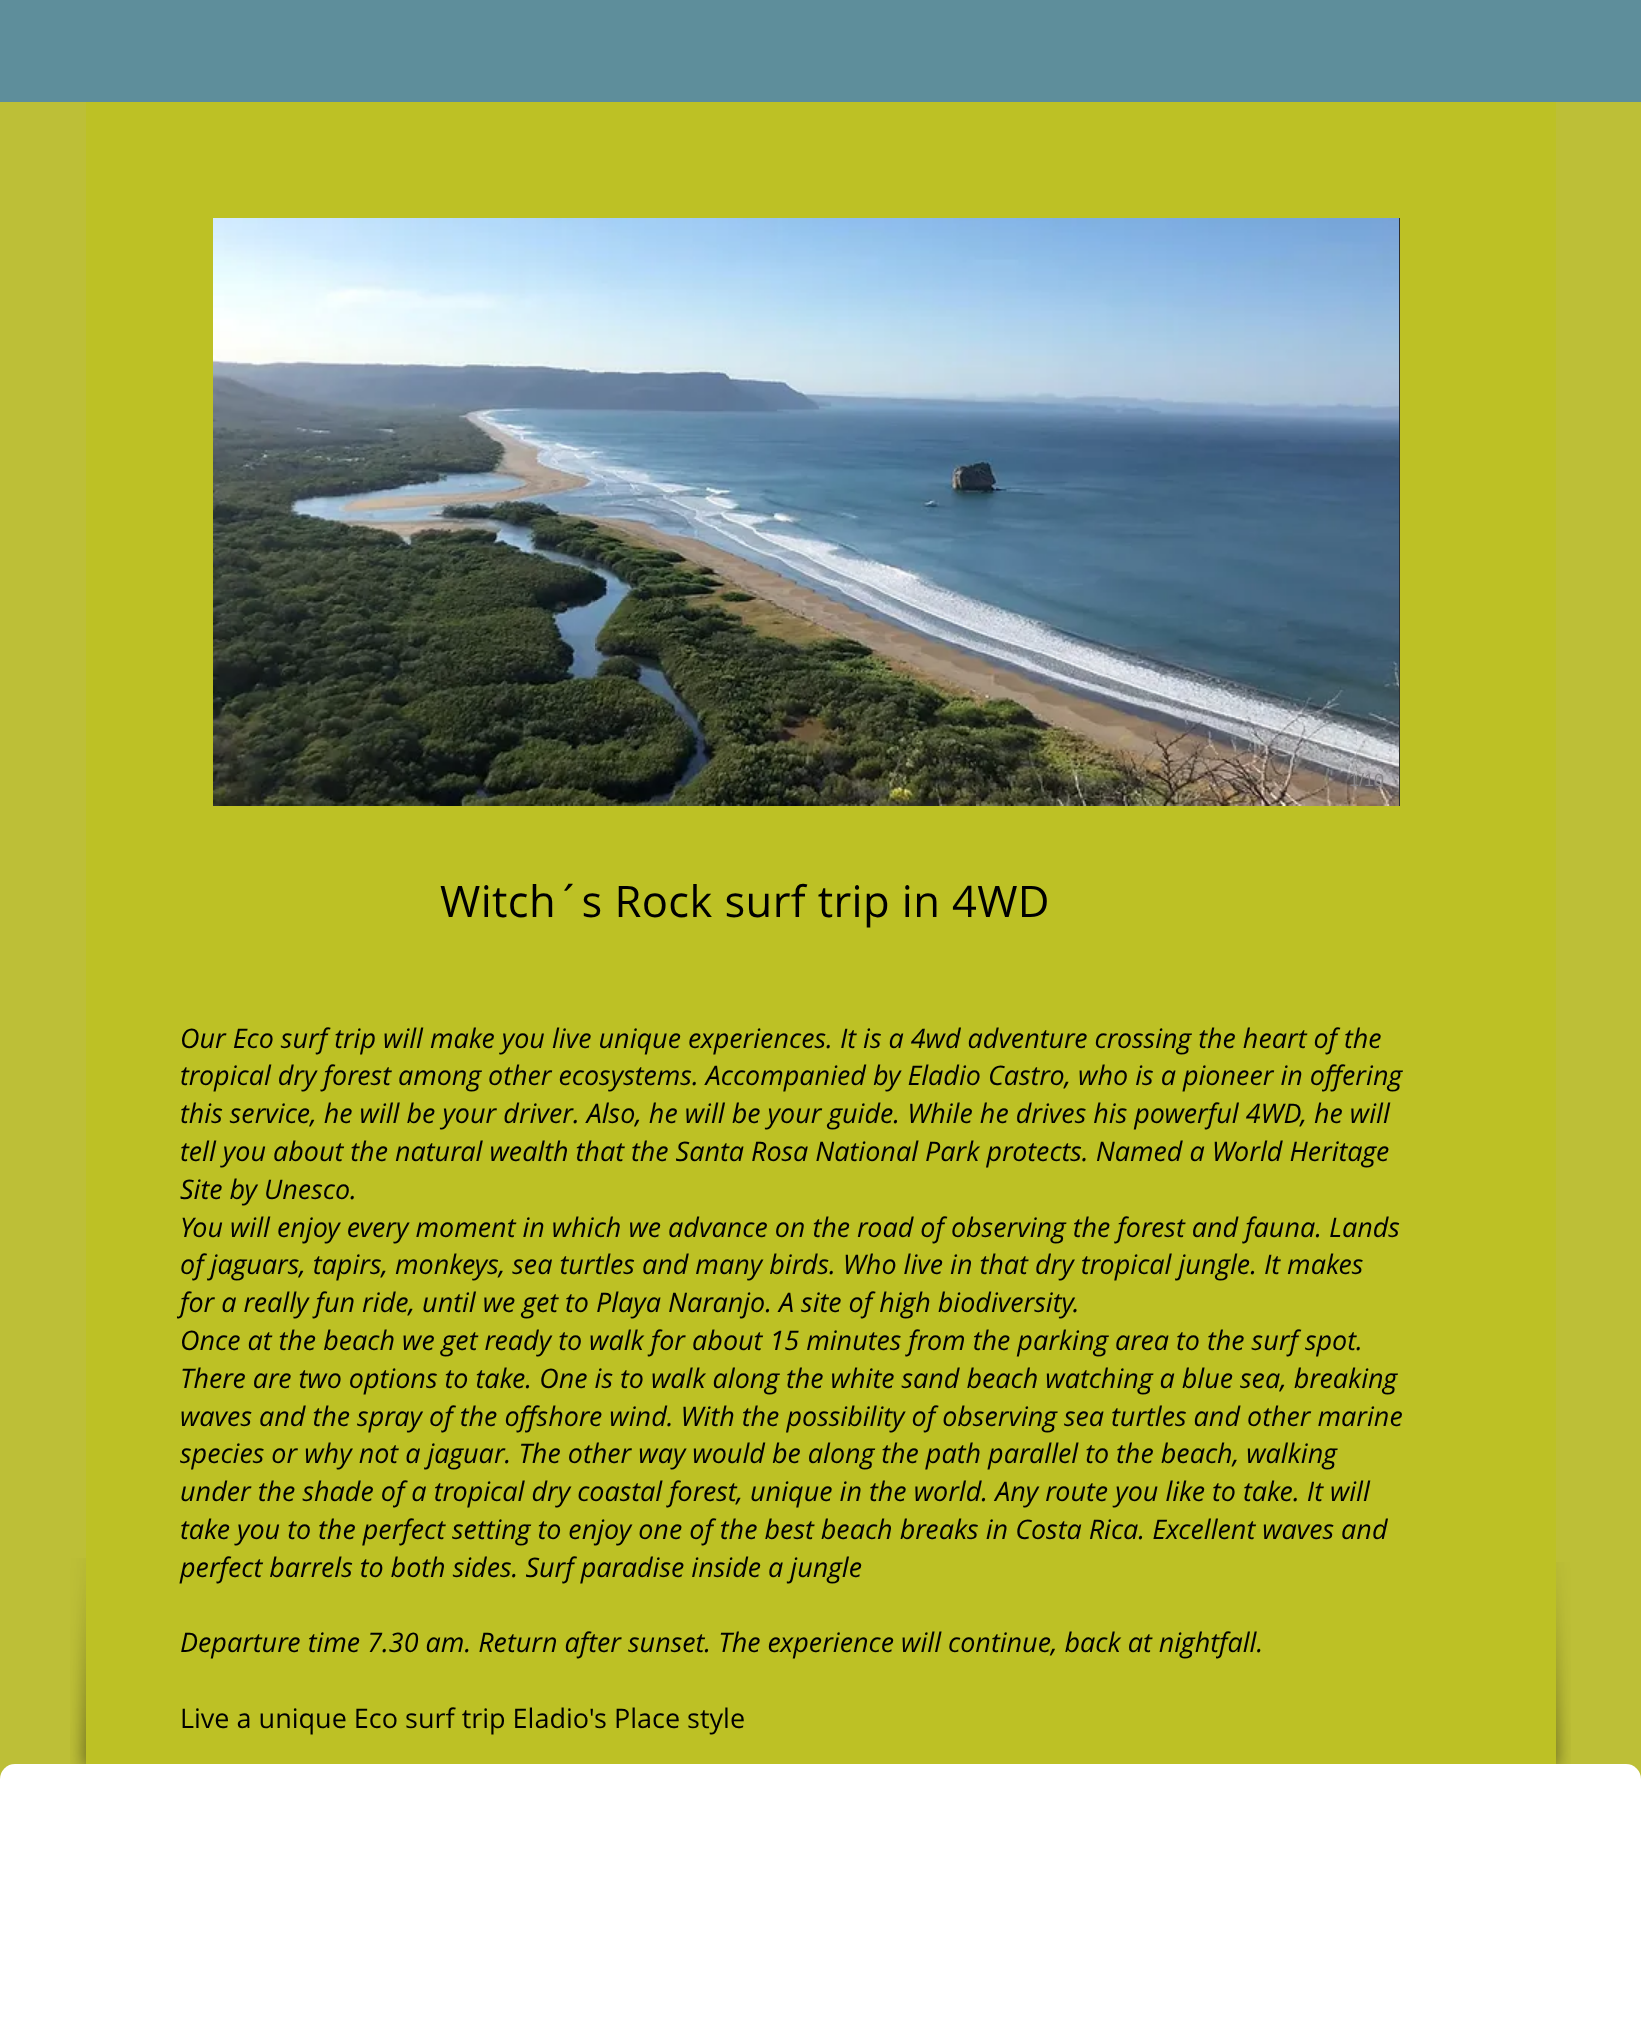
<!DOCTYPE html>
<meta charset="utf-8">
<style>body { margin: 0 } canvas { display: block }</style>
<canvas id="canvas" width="1641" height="2044"></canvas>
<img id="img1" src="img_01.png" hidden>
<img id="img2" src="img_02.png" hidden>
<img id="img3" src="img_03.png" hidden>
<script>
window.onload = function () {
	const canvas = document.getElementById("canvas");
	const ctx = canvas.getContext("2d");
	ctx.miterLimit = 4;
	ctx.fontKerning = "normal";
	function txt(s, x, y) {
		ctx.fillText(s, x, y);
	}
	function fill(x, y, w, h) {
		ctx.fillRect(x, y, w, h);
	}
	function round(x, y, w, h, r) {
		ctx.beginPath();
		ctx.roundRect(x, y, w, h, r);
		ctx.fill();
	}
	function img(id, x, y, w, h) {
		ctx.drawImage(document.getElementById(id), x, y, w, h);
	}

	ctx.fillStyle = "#BDBF37";
	fill(0, 0, 1641, 2044);
	ctx.fillStyle = "#5E8E9B";
	fill(0, 0, 1641, 102);
	img("img1", 70, 1558, 16, 206);
	ctx.fillStyle = "#BDC125";
	fill(86, 102, 1470, 1662);
	img("img2", 1556, 1562, 15, 202);
	ctx.fillStyle = "#2F2E2E";
	fill(1399, 218, 1, 588);
	img("img3", 213, 218, 1186, 588);
	ctx.fillStyle = "#FFFFFF";
	round(0, 1764, 1641, 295, 15);
	ctx.font = "18px Liberation Sans";
	ctx.fillStyle = "#888588";
	txt("1/10", 1349, 786);
	ctx.letterSpacing = "0.4px";
	ctx.font = "43.5px Open Sans";
	ctx.fillStyle = "#000000";
	txt("Witch´s Rock surf trip in 4WD", 440, 917);
	ctx.letterSpacing = "0px";
	ctx.font = "italic 27px Open Sans";
	txt("Our Eco surf trip will make you live unique experiences. It is a 4wd adventure crossing the heart of the", 180, 1048);
	txt("tropical dry forest among other ecosystems. Accompanied by Eladio Castro, who is a pioneer in offering", 180, 1085);
	txt("this service, he will be your driver. Also, he will be your guide. While he drives his powerful 4WD, he will", 180, 1123);
	txt("tell you about the natural wealth that the Santa Rosa National Park protects. Named a World Heritage", 180, 1161);
	txt("Site by Unesco.", 180, 1199);
	txt("You will enjoy every moment in which we advance on the road of observing the forest and fauna. Lands", 180, 1237);
	txt("of jaguars, tapirs, monkeys, sea turtles and many birds. Who live in that dry tropical jungle. It makes", 180, 1274);
	txt("for a really fun ride, until we get to Playa Naranjo. A site of high biodiversity.", 180, 1312);
	txt("Once at the beach we get ready to walk for about 15 minutes from the parking area to the surf spot.", 180, 1350);
	txt("There are two options to take. One is to walk along the white sand beach watching a blue sea, breaking", 180, 1388);
	txt("waves and the spray of the offshore wind. With the possibility of observing sea turtles and other marine", 180, 1426);
	txt("species or why not a jaguar. The other way would be along the path parallel to the beach, walking", 180, 1463);
	txt("under the shade of a tropical dry coastal forest, unique in the world. Any route you like to take. It will", 180, 1501);
	txt("take you to the perfect setting to enjoy one of the best beach breaks in Costa Rica. Excellent waves and", 180, 1539);
	txt("perfect barrels to both sides. Surf paradise inside a jungle", 180, 1577);
	txt("Departure time 7.30 am. Return after sunset. The experience will continue, back at nightfall.", 180, 1652);
	ctx.font = "27px Open Sans";
	txt("Live a unique Eco surf trip Eladio's Place style", 180, 1728);
};
</script>
